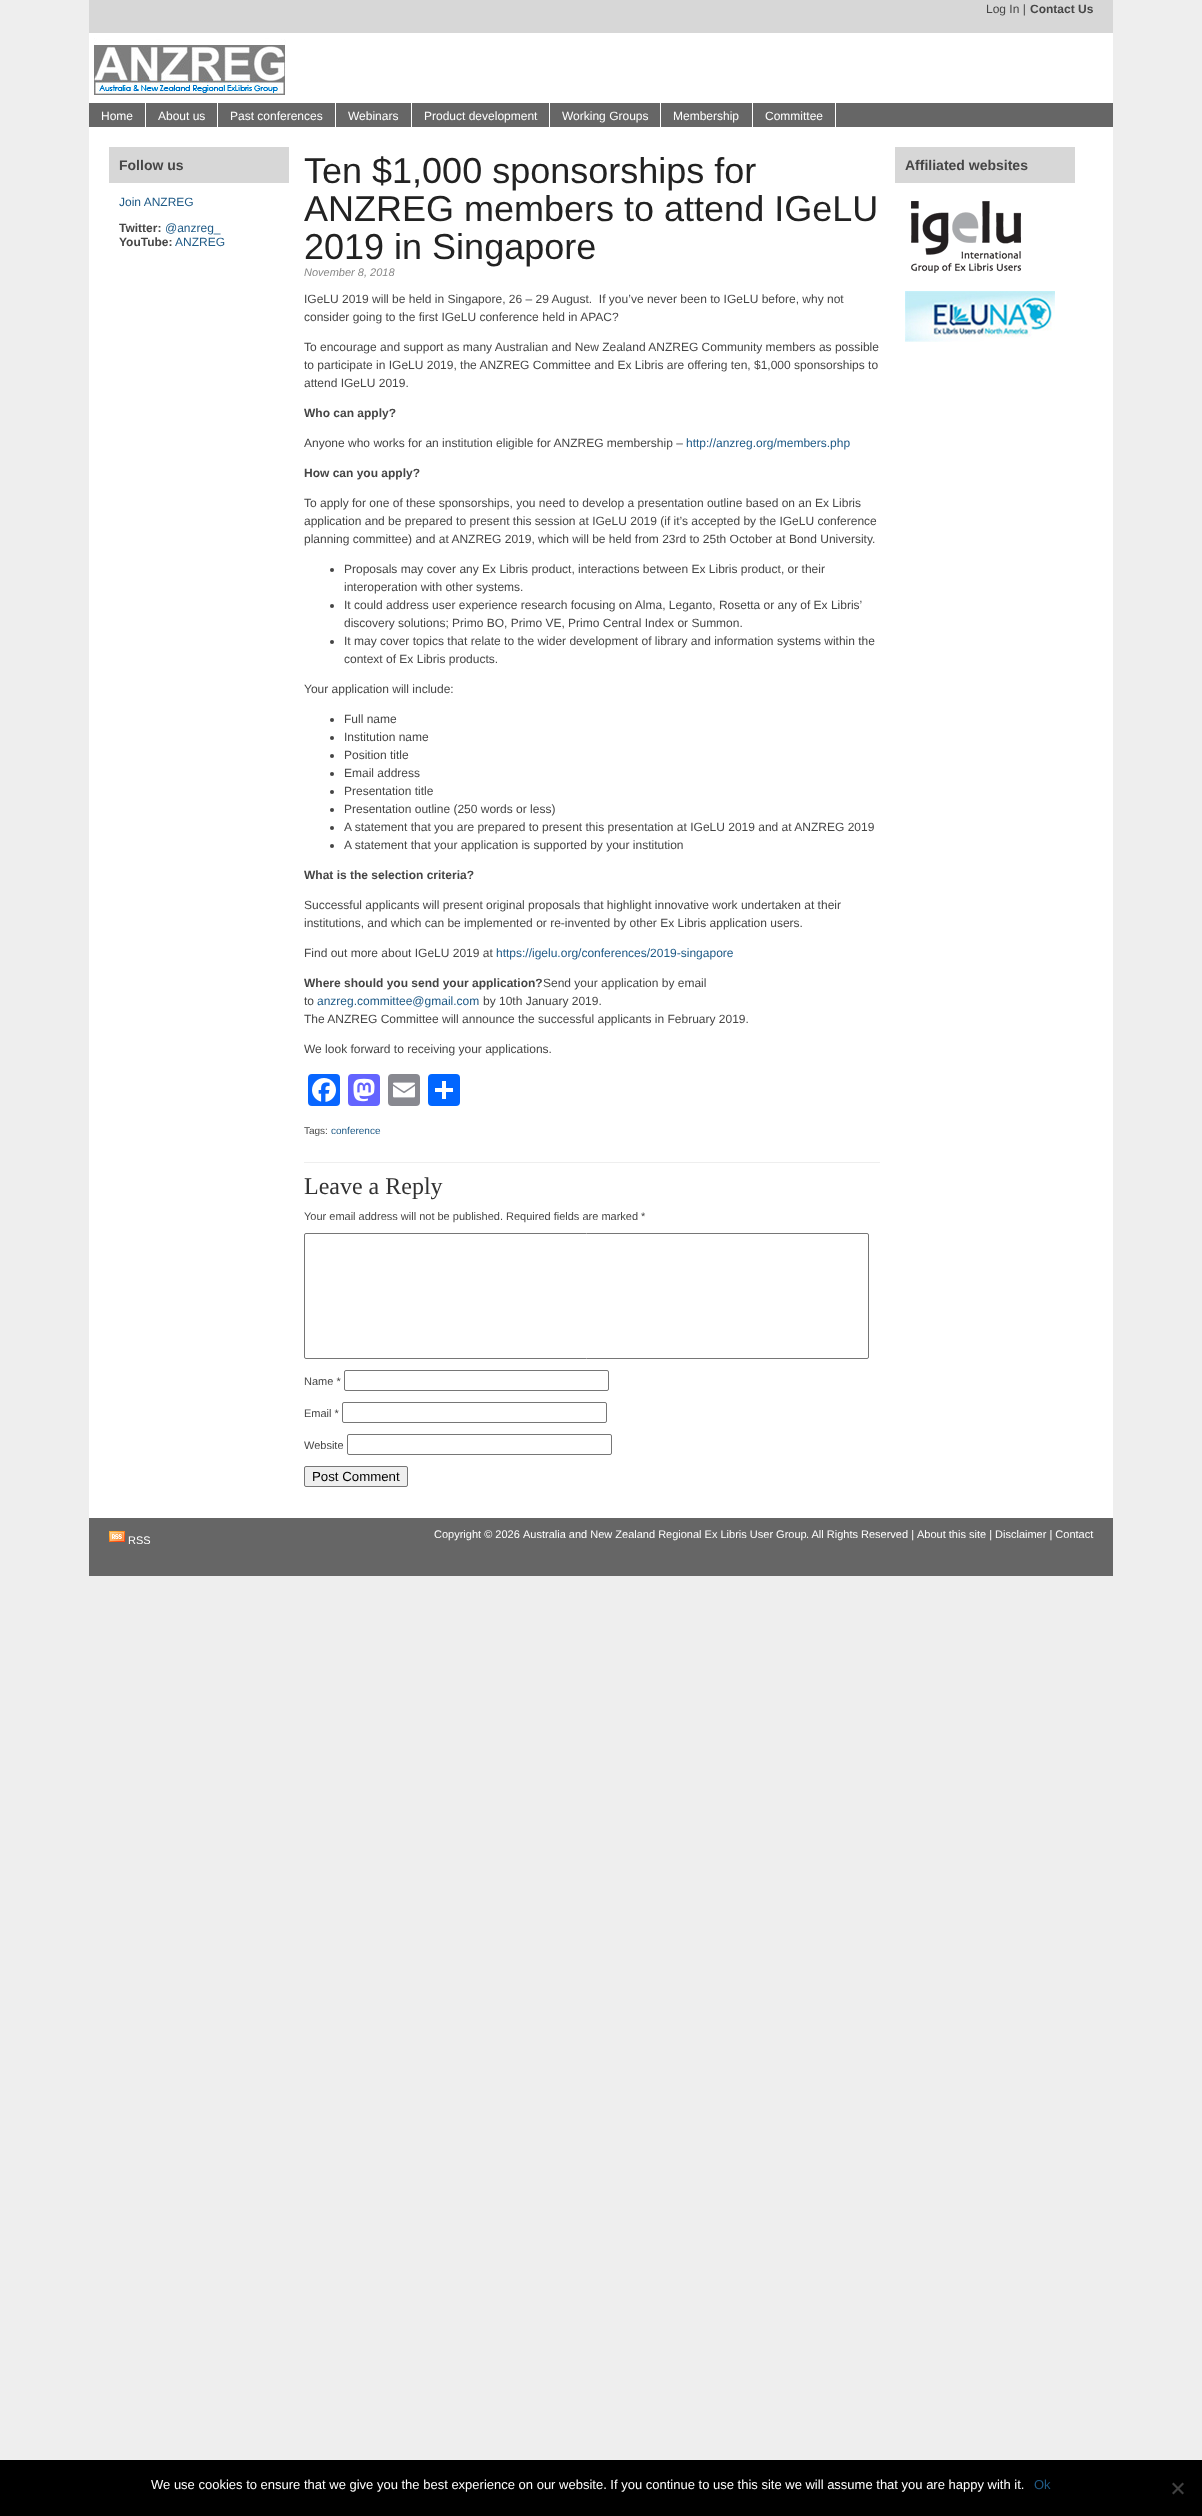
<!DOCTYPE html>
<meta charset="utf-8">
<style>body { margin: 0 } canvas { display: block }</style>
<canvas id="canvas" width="1202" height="2516"></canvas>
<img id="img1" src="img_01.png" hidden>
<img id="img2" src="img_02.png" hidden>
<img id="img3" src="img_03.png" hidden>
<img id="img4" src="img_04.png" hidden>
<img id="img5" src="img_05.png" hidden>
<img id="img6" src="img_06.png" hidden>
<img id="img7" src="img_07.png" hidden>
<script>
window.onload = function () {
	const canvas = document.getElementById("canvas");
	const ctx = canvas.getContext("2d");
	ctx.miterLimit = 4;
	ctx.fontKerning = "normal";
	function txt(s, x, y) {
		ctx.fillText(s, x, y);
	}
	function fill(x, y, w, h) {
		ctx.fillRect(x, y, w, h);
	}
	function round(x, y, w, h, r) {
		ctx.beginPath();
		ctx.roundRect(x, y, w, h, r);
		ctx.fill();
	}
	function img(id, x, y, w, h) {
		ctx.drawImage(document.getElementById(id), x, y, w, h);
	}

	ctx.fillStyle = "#EEEEEE";
	fill(0, 0, 1202, 2516);
	ctx.fillStyle = "#FFFFFF";
	fill(89, 33, 1024, 70);
	ctx.fillStyle = "#D7D7D7";
	fill(89, 0, 1024, 33);
	img("img1", 94, 38, 192, 57);
	ctx.fillStyle = "#666666";
	fill(89, 103, 1024, 24);
	ctx.fillStyle = "#FFFFFF";
	fill(145, 103, 1, 24);
	fill(217, 103, 1, 24);
	fill(335, 103, 1, 24);
	fill(411, 103, 1, 24);
	fill(549, 103, 1, 24);
	fill(660, 103, 1, 24);
	fill(752, 103, 1, 24);
	fill(835, 103, 1, 24);
	fill(89, 127, 1024, 1391);
	ctx.fillStyle = "#D7D7D7";
	fill(109, 147, 180, 36);
	ctx.fillStyle = "#EEEEEE";
	fill(304, 1162, 576, 1);
	ctx.fillStyle = "#444444";
	ctx.beginPath();
	ctx.arc(332, 570, 2, 0, Math.PI * 2);
	ctx.fill();
	ctx.beginPath();
	ctx.arc(332, 606, 2, 0, Math.PI * 2);
	ctx.fill();
	ctx.beginPath();
	ctx.arc(332, 642, 2, 0, Math.PI * 2);
	ctx.fill();
	ctx.beginPath();
	ctx.arc(332, 720, 2, 0, Math.PI * 2);
	ctx.fill();
	ctx.beginPath();
	ctx.arc(332, 738, 2, 0, Math.PI * 2);
	ctx.fill();
	ctx.beginPath();
	ctx.arc(332, 756, 2, 0, Math.PI * 2);
	ctx.fill();
	ctx.beginPath();
	ctx.arc(332, 774, 2, 0, Math.PI * 2);
	ctx.fill();
	ctx.beginPath();
	ctx.arc(332, 792, 2, 0, Math.PI * 2);
	ctx.fill();
	ctx.beginPath();
	ctx.arc(332, 810, 2, 0, Math.PI * 2);
	ctx.fill();
	ctx.beginPath();
	ctx.arc(332, 828, 2, 0, Math.PI * 2);
	ctx.fill();
	ctx.beginPath();
	ctx.arc(332, 846, 2, 0, Math.PI * 2);
	ctx.fill();
	ctx.fillStyle = "#0866FF";
	round(308, 1074, 32, 32, 4);
	img("img2", 312, 1078, 24, 24);
	ctx.fillStyle = "#6364FF";
	round(348, 1074, 32, 32, 4);
	img("img3", 353, 1078, 22, 24);
	ctx.fillStyle = "#888990";
	round(388, 1074, 32, 32, 4);
	img("img4", 393, 1082, 22, 16);
	ctx.fillStyle = "#0166FF";
	round(428, 1074, 32, 32, 4);
	ctx.fillStyle = "#FFFFFF";
	fill(442, 1081, 4, 18);
	fill(435, 1088, 18, 4);
	ctx.beginPath();
	ctx.roundRect(304.5, 1233.5, 564, 125, 1.5);
	ctx.strokeStyle = "#767676";
	ctx.stroke();
	ctx.beginPath();
	ctx.roundRect(344.5, 1370.5, 264, 20, 1.5);
	ctx.stroke();
	ctx.beginPath();
	ctx.roundRect(342.5, 1402.5, 264, 20, 1.5);
	ctx.stroke();
	ctx.beginPath();
	ctx.roundRect(347.5, 1434.5, 264, 20, 1.5);
	ctx.stroke();
	ctx.fillStyle = "#EFEFEF";
	ctx.beginPath();
	ctx.roundRect(304.5, 1466.5, 103, 20, 1.5);
	ctx.fill();
	ctx.stroke();
	ctx.fillStyle = "#D7D7D7";
	fill(895, 147, 180, 36);
	img("img5", 911, 201, 110, 72);
	img("img6", 905, 291, 150, 51);
	ctx.fillStyle = "#666666";
	fill(89, 1518, 1024, 58);
	img("img7", 109, 1531, 16, 11);
	ctx.fillStyle = "#000000";
	fill(0, 2460, 1202, 56);
	ctx.fillStyle = "#404040";
	ctx.beginPath();
	ctx.moveTo(1182.5, 2482.5);
	ctx.lineTo(1184, 2484);
	ctx.lineTo(1173.5, 2494.5);
	ctx.lineTo(1172, 2493);
	ctx.closePath();
	ctx.fill();
	ctx.beginPath();
	ctx.moveTo(1172, 2484);
	ctx.lineTo(1173.5, 2482.5);
	ctx.lineTo(1184, 2493);
	ctx.lineTo(1182.5, 2494.5);
	ctx.closePath();
	ctx.fill();
	ctx.font = "12px Liberation Sans";
	ctx.fillStyle = "#464646";
	txt("Log In |", 986, 13);
	ctx.font = "bold 12px Liberation Sans";
	txt("Contact Us", 1030, 13);
	ctx.font = "12px Liberation Sans";
	ctx.fillStyle = "#FFFFFF";
	txt("Home", 101, 120);
	txt("About us", 158, 120);
	txt("Past conferences", 230, 120);
	txt("Webinars", 348, 120);
	txt("Product development", 424, 120);
	txt("Working Groups", 562, 120);
	txt("Membership", 673, 120);
	txt("Committee", 765, 120);
	ctx.font = "bold 14px Liberation Sans";
	ctx.fillStyle = "#464646";
	txt("Follow us", 119, 170);
	ctx.font = "12px Liberation Sans";
	ctx.fillStyle = "#205B87";
	txt("Join ANZREG", 119, 206);
	ctx.font = "bold 12px Liberation Sans";
	ctx.fillStyle = "#464646";
	txt("Twitter:", 119, 232);
	ctx.font = "12px Liberation Sans";
	ctx.fillStyle = "#205B87";
	txt("@anzreg_", 165, 232);
	ctx.font = "bold 12px Liberation Sans";
	ctx.fillStyle = "#464646";
	txt("YouTube:", 119, 246);
	ctx.font = "12px Liberation Sans";
	ctx.fillStyle = "#205B87";
	txt("ANZREG", 175, 246);
	ctx.font = "36px Liberation Sans";
	ctx.fillStyle = "#222222";
	txt("Ten $1,000 sponsorships for", 304, 183);
	txt("ANZREG members to attend IGeLU", 304, 221);
	txt("2019 in Singapore", 304, 259);
	ctx.font = "italic 11px Liberation Sans";
	ctx.fillStyle = "#888888";
	txt("November 8, 2018", 304, 276);
	ctx.font = "12px Liberation Sans";
	ctx.fillStyle = "#464646";
	txt("IGeLU 2019 will be held in Singapore, 26 – 29 August.  If you’ve never been to IGeLU before, why not", 304, 303);
	txt("consider going to the first IGeLU conference held in APAC?", 304, 321);
	txt("To encourage and support as many Australian and New Zealand ANZREG Community members as possible", 304, 351);
	txt("to participate in IGeLU 2019, the ANZREG Committee and Ex Libris are offering ten, $1,000 sponsorships to", 304, 369);
	txt("attend IGeLU 2019.", 304, 387);
	ctx.font = "bold 12px Liberation Sans";
	txt("Who can apply?", 304, 417);
	ctx.font = "12px Liberation Sans";
	txt("Anyone who works for an institution eligible for ANZREG membership –", 304, 447);
	ctx.fillStyle = "#205B87";
	txt("http://anzreg.org/members.php", 686, 447);
	ctx.font = "bold 12px Liberation Sans";
	ctx.fillStyle = "#464646";
	txt("How can you apply?", 304, 477);
	ctx.font = "12px Liberation Sans";
	txt("To apply for one of these sponsorships, you need to develop a presentation outline based on an Ex Libris", 304, 507);
	txt("application and be prepared to present this session at IGeLU 2019 (if it’s accepted by the IGeLU conference", 304, 525);
	txt("planning committee) and at ANZREG 2019, which will be held from 23rd to 25th October at Bond University.", 304, 543);
	txt("Proposals may cover any Ex Libris product, interactions between Ex Libris product, or their", 344, 573);
	txt("interoperation with other systems.", 344, 591);
	txt("It could address user experience research focusing on Alma, Leganto, Rosetta or any of Ex Libris’", 344, 609);
	txt("discovery solutions; Primo BO, Primo VE, Primo Central Index or Summon.", 344, 627);
	txt("It may cover topics that relate to the wider development of library and information systems within the", 344, 645);
	txt("context of Ex Libris products.", 344, 663);
	txt("Your application will include:", 304, 693);
	txt("Full name", 344, 723);
	txt("Institution name", 344, 741);
	txt("Position title", 344, 759);
	txt("Email address", 344, 777);
	txt("Presentation title", 344, 795);
	txt("Presentation outline (250 words or less)", 344, 813);
	txt("A statement that you are prepared to present this presentation at IGeLU 2019 and at ANZREG 2019", 344, 831);
	txt("A statement that your application is supported by your institution", 344, 849);
	ctx.font = "bold 12px Liberation Sans";
	txt("What is the selection criteria?", 304, 879);
	ctx.font = "12px Liberation Sans";
	txt("Successful applicants will present original proposals that highlight innovative work undertaken at their", 304, 909);
	txt("institutions, and which can be implemented or re-invented by other Ex Libris application users.", 304, 927);
	txt("Find out more about IGeLU 2019 at", 304, 957);
	ctx.fillStyle = "#205B87";
	txt("https://igelu.org/conferences/2019-singapore", 496, 957);
	ctx.font = "bold 12px Liberation Sans";
	ctx.fillStyle = "#464646";
	txt("Where should you send your application?", 304, 987);
	ctx.font = "12px Liberation Sans";
	txt("Send your application by email", 543, 987);
	txt("to", 304, 1005);
	ctx.fillStyle = "#205B87";
	txt("anzreg.committee@gmail.com", 317, 1005);
	ctx.fillStyle = "#464646";
	txt("by 10th January 2019.", 483, 1005);
	txt("The ANZREG Committee will announce the successful applicants in February 2019.", 304, 1023);
	txt("We look forward to receiving your applications.", 304, 1053);
	ctx.font = "10px Liberation Sans";
	txt("Tags:", 304, 1134);
	ctx.fillStyle = "#205B87";
	txt("conference", 331, 1134);
	ctx.font = "24px Liberation Serif";
	ctx.fillStyle = "#333333";
	txt("Leave a Reply", 304, 1194);
	ctx.font = "11px Liberation Sans";
	ctx.fillStyle = "#464646";
	txt("Your email address will not be published. Required fields are marked *", 304, 1220);
	txt("Name *", 304, 1385);
	txt("Email *", 304, 1417);
	txt("Website", 304, 1449);
	ctx.font = "13.25px Liberation Sans";
	ctx.fillStyle = "#000000";
	txt("Post Comment", 312, 1481);
	ctx.font = "bold 14px Liberation Sans";
	ctx.fillStyle = "#464646";
	txt("Affiliated websites", 905, 170);
	ctx.font = "11px Liberation Sans";
	ctx.fillStyle = "#FFFFFF";
	txt("RSS", 128, 1544);
	txt("Copyright © 2026", 434, 1538);
	txt("Australia and New Zealand Regional Ex Libris User Group", 523, 1538);
	txt(". All Rights Reserved |", 806, 1538);
	txt("About this site | Disclaimer | Contact", 917, 1538);
	ctx.font = "13px Liberation Sans";
	txt("We use cookies to ensure that we give you the best experience on our website. If you continue to use this site we will assume that you are happy with it.", 151, 2489);
	ctx.fillStyle = "#205B87";
	txt("Ok", 1034, 2489);
};
</script>
